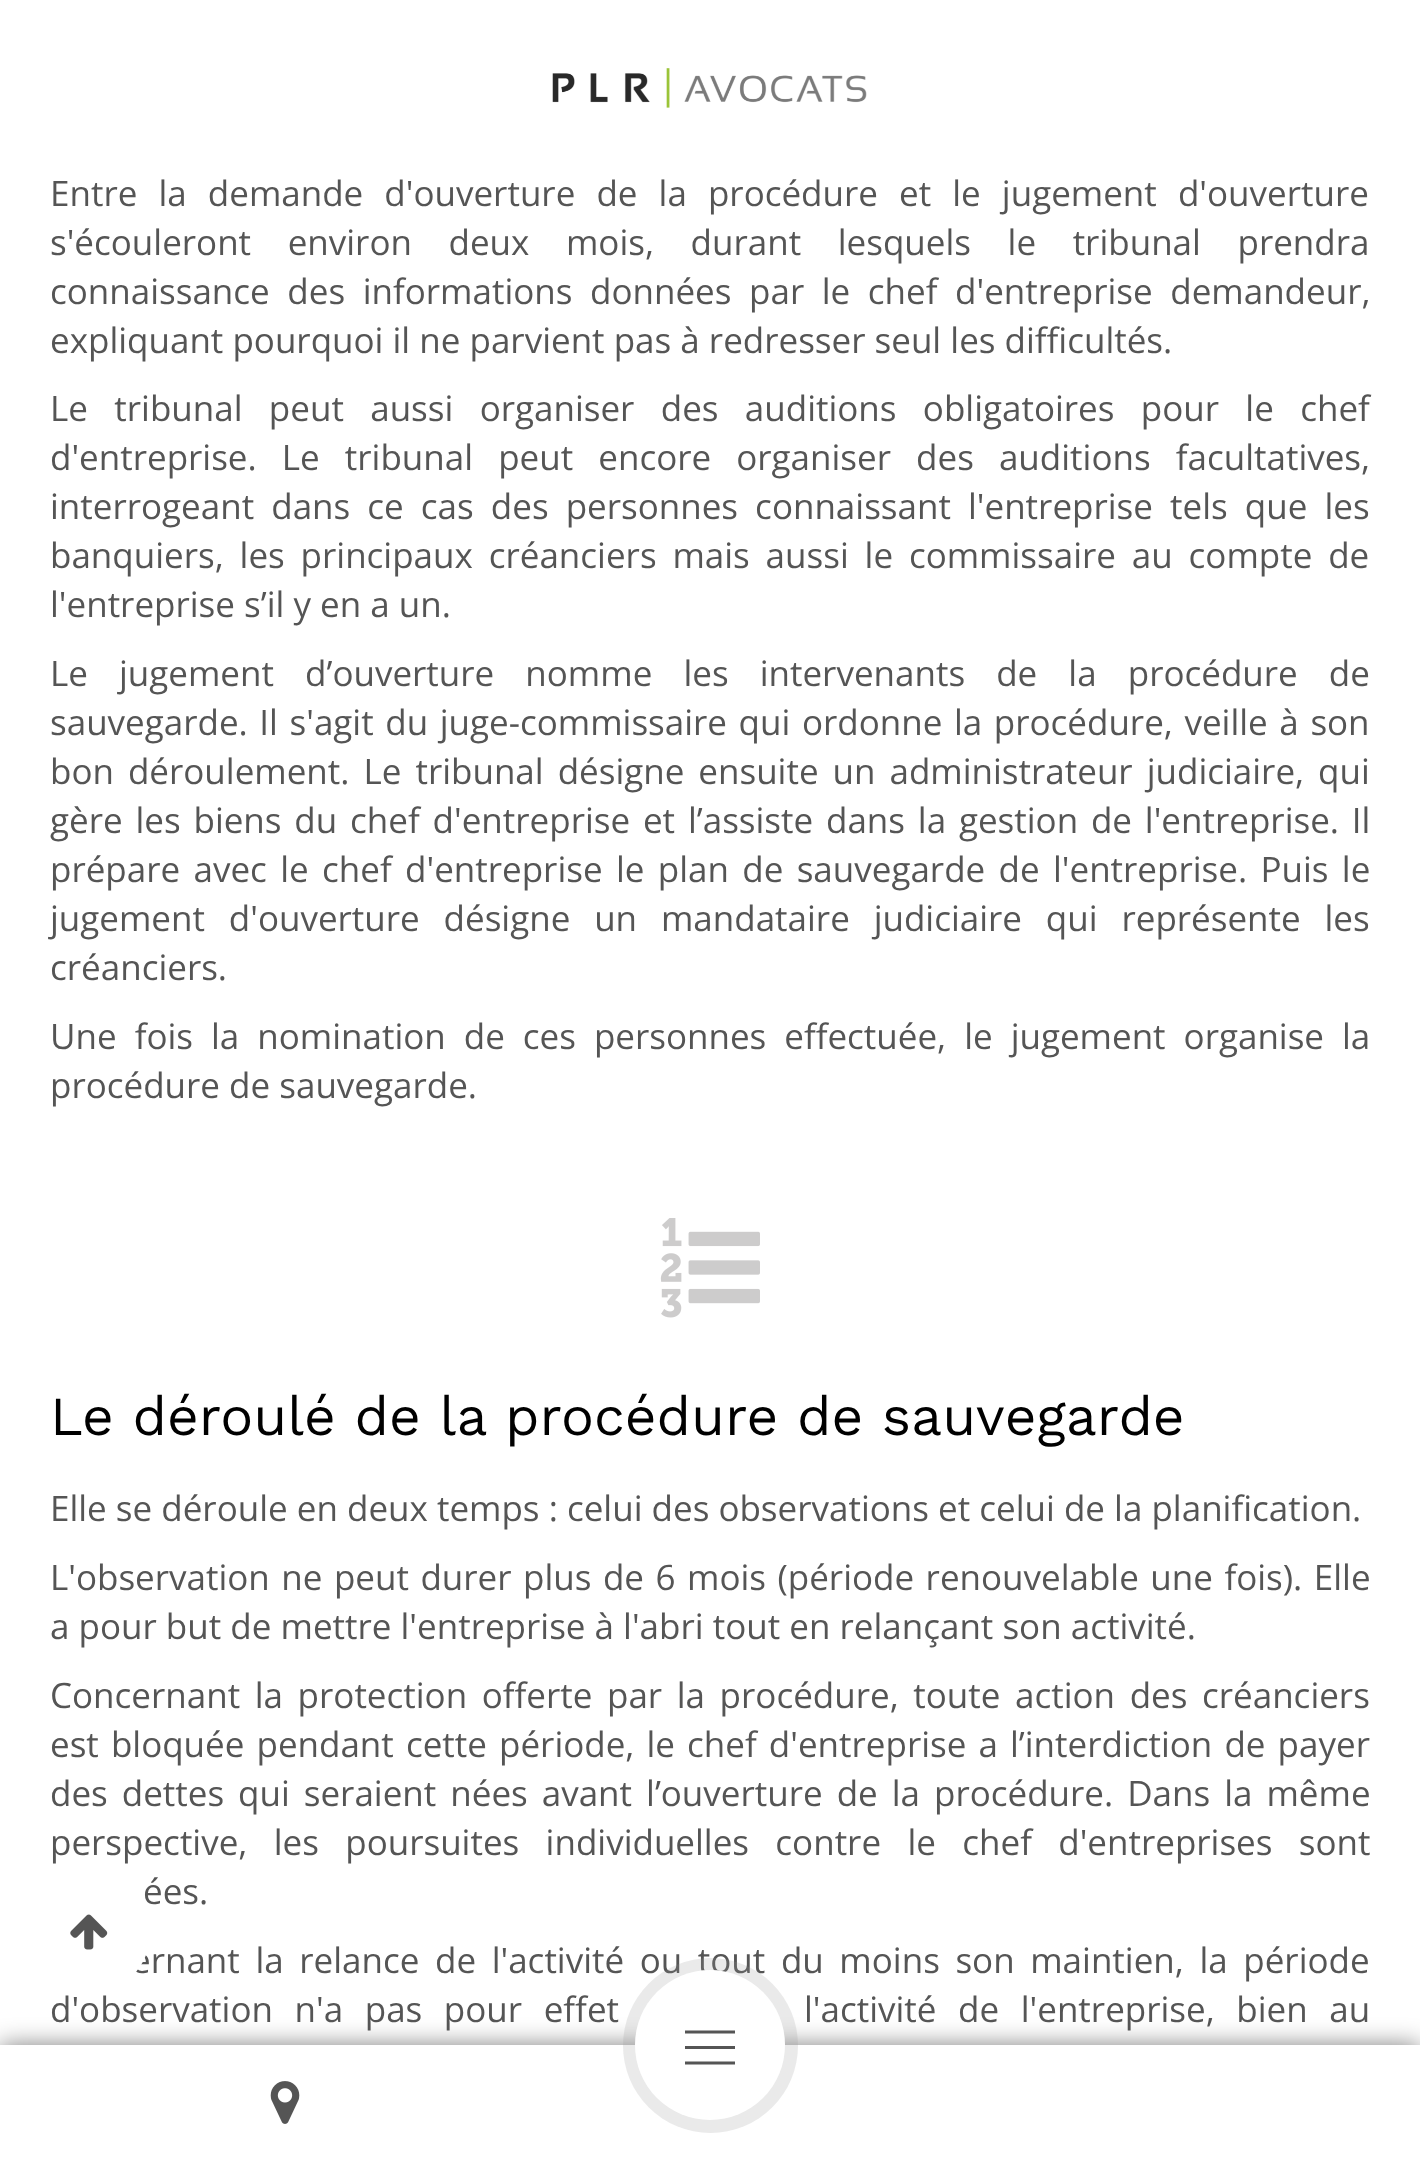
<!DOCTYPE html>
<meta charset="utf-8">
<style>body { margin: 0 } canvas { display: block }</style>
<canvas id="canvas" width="1420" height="2168"></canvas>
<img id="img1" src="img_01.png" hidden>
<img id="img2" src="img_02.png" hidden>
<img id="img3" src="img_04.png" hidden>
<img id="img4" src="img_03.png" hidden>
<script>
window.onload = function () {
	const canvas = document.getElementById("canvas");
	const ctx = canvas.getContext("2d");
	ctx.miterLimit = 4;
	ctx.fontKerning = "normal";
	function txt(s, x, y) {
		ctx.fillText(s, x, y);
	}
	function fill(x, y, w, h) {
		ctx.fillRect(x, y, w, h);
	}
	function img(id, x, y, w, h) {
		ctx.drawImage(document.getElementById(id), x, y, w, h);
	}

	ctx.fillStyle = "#FFFFFF";
	fill(0, 0, 1420, 2168);
	img("img1", 552, 68, 315, 40);
	img("img2", 660, 1218, 100, 100);
	ctx.fillStyle = "rgba(0, 0, 0, 0.5)";
	ctx.filter = "blur(12.5px)";
	ctx.beginPath();
	ctx.rect(0, 2045, 1420, 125);
	ctx.fill();
	ctx.filter = "none";
	ctx.fillStyle = "#FFFFFF";
	fill(0, 2045, 1420, 123);
	img("img3", 270, 2081, 30, 43);
	ctx.wordSpacing = "12px";
	ctx.font = "35px Open Sans";
	ctx.fillStyle = "#555555";
	txt("Entre la demande d'ouverture de la procédure et le jugement d'ouverture", 50, 206);
	ctx.wordSpacing = "27.5px";
	txt("s'écouleront environ deux mois, durant lesquels le tribunal prendra", 50, 255);
	ctx.wordSpacing = "8.5px";
	txt("connaissance des informations données par le chef d'entreprise demandeur,", 50, 304);
	ctx.wordSpacing = "0px";
	txt("expliquant pourquoi il ne parvient pas à redresser seul les difficultés.", 50, 353);
	ctx.wordSpacing = "17.25px";
	txt("Le tribunal peut aussi organiser des auditions obligatoires pour le chef", 50, 421);
	ctx.wordSpacing = "16px";
	txt("d'entreprise. Le tribunal peut encore organiser des auditions facultatives,", 50, 470);
	ctx.wordSpacing = "8px";
	txt("interrogeant dans ce cas des personnes connaissant l'entreprise tels que les", 50, 519);
	ctx.wordSpacing = "6.75px";
	txt("banquiers, les principaux créanciers mais aussi le commissaire au compte de", 50, 568);
	ctx.wordSpacing = "0px";
	txt("l'entreprise s’il y en a un.", 50, 617);
	ctx.wordSpacing = "22px";
	txt("Le jugement d’ouverture nomme les intervenants de la procédure de", 50, 686);
	ctx.wordSpacing = "2.5px";
	txt("sauvegarde. Il s'agit du juge-commissaire qui ordonne la procédure, veille à son", 50, 735);
	ctx.wordSpacing = "4.9px";
	txt("bon déroulement. Le tribunal désigne ensuite un administrateur judiciaire, qui", 50, 784);
	ctx.wordSpacing = "3.75px";
	txt("gère les biens du chef d'entreprise et l’assiste dans la gestion de l'entreprise. Il", 50, 833);
	ctx.wordSpacing = "4.25px";
	txt("prépare avec le chef d'entreprise le plan de sauvegarde de l'entreprise. Puis le", 50, 882);
	ctx.wordSpacing = "14.75px";
	txt("jugement d'ouverture désigne un mandataire judiciaire qui représente les", 50, 931);
	ctx.wordSpacing = "0px";
	txt("créanciers.", 50, 980);
	ctx.wordSpacing = "8.9px";
	txt("Une fois la nomination de ces personnes effectuée, le jugement organise la", 50, 1049);
	ctx.wordSpacing = "0px";
	txt("procédure de sauvegarde.", 50, 1098);
	ctx.font = "55px Work Sans";
	ctx.fillStyle = "#000000";
	txt("Le déroulé de la procédure de sauvegarde", 50, 1435);
	ctx.font = "35px Open Sans";
	ctx.fillStyle = "#555555";
	txt("Elle se déroule en deux temps : celui des observations et celui de la planification.", 50, 1521);
	ctx.wordSpacing = "2.4px";
	txt("L'observation ne peut durer plus de 6 mois (période renouvelable une fois). Elle", 50, 1590);
	ctx.wordSpacing = "0px";
	txt("a pour but de mettre l'entreprise à l'abri tout en relançant son activité.", 50, 1639);
	ctx.wordSpacing = "5.5px";
	txt("Concernant la protection offerte par la procédure, toute action des créanciers", 50, 1708);
	ctx.wordSpacing = "3px";
	txt("est bloquée pendant cette période, le chef d'entreprise a l’interdiction de payer", 50, 1757);
	ctx.wordSpacing = "4.9px";
	txt("des dettes qui seraient nées avant l’ouverture de la procédure. Dans la même", 50, 1806);
	ctx.wordSpacing = "17.25px";
	txt("perspective, les poursuites individuelles contre le chef d'entreprises sont", 50, 1855);
	ctx.wordSpacing = "0px";
	txt("ées.", 143, 1904);
	ctx.wordSpacing = "6.5px";
	txt("ernant la relance de l'activité ou tout du moins son maintien, la période", 131, 1973);
	ctx.wordSpacing = "12.5px";
	txt("d'observation n'a pas pour effet", 50, 2022);
	txt("l'activité de l'entreprise, bien au", 804, 2022);
	ctx.fillStyle = "#FFFFFF";
	ctx.beginPath();
	ctx.arc(87.5, 1932.5, 61, 0, Math.PI * 2);
	ctx.fill();
	ctx.strokeStyle = "#FFFFFF";
	ctx.lineWidth = 3;
	ctx.stroke();
	img("img4", 70, 1914, 38, 36);
	ctx.fillStyle = "rgba(150, 150, 150, 0.2)";
	ctx.beginPath();
	ctx.arc(710.5, 2045.5, 87.5, 0, Math.PI * 2);
	ctx.fill();
	ctx.fillStyle = "#FFFFFF";
	ctx.beginPath();
	ctx.arc(710, 2045, 75, 0, Math.PI * 2);
	ctx.fill();
	ctx.fillStyle = "#555555";
	fill(685, 2046, 50, 3);
	ctx.beginPath();
	ctx.moveTo(685, 2032);
	ctx.lineTo(735, 2032);
	ctx.moveTo(685, 2063);
	ctx.lineTo(735, 2063);
	ctx.strokeStyle = "#555555";
	ctx.stroke();
};
</script>
